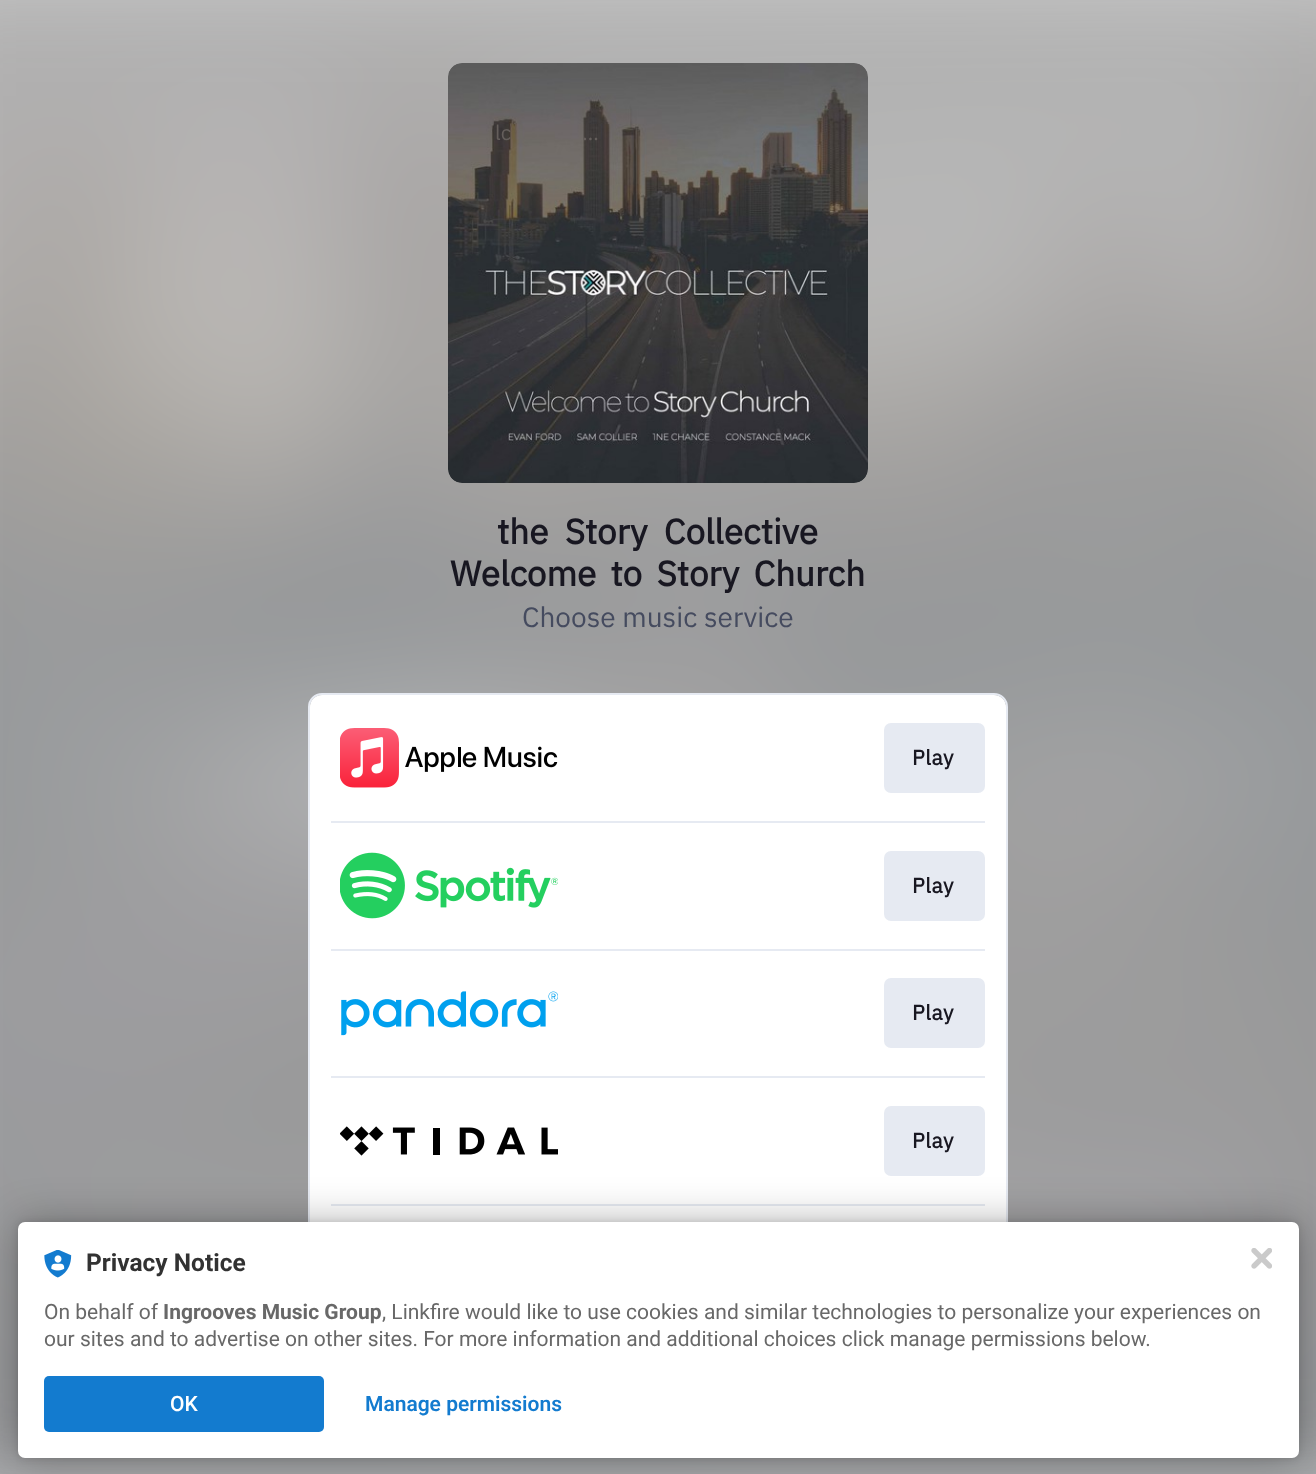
<!DOCTYPE html>
<meta charset="utf-8">
<style>body { margin: 0 } canvas { display: block }</style>
<canvas id="canvas" width="1316" height="1474"></canvas>
<img id="img1" src="img_01.png" hidden>
<img id="img2" src="img_02.png" hidden>
<img id="img3" src="img_03.png" hidden>
<img id="img4" src="img_04.png" hidden>
<img id="img5" src="img_05.png" hidden>
<img id="img6" src="img_06.png" hidden>
<img id="img7" src="img_07.png" hidden>
<img id="img8" src="img_08.png" hidden>
<script>
window.onload = function () {
	const canvas = document.getElementById("canvas");
	const ctx = canvas.getContext("2d");
	ctx.miterLimit = 4;
	ctx.fontKerning = "normal";
	function txt(s, x, y) {
		ctx.fillText(s, x, y);
	}
	function fill(x, y, w, h) {
		ctx.fillRect(x, y, w, h);
	}
	function round(x, y, w, h, r) {
		ctx.beginPath();
		ctx.roundRect(x, y, w, h, r);
		ctx.fill();
	}
	function img(id, x, y, w, h) {
		ctx.drawImage(document.getElementById(id), x, y, w, h);
	}

	ctx.fillStyle = "#FFFFFF";
	fill(0, 0, 1316, 1474);
	img("img1", 0, 0, 1316, 1474);
	img("img2", 448, 63, 420, 420);
	ctx.beginPath();
	ctx.roundRect(309, 694, 698, 639, 13);
	ctx.strokeStyle = "#E6EAF2";
	ctx.lineWidth = 2;
	ctx.stroke();
	round(310, 695, 696, 637, 12);
	img("img3", 340, 728, 218, 60);
	ctx.fillStyle = "#E6EAF2";
	round(884, 723, 101, 70, 7);
	fill(331, 821, 654, 2);
	img("img4", 340, 852, 218, 67);
	round(884, 851, 101, 70, 7);
	fill(331, 949, 654, 2);
	img("img5", 341, 991, 217, 45);
	round(884, 978, 101, 70, 7);
	fill(331, 1076, 654, 2);
	img("img6", 340, 1126, 218, 30);
	round(884, 1106, 101, 70, 7);
	fill(331, 1204, 654, 2);
	ctx.fillStyle = "rgba(0, 0, 0, 0.12)";
	ctx.filter = "blur(3.5px)";
	ctx.beginPath();
	ctx.roundRect(18, 1222, 1281, 236, 7);
	ctx.fill();
	ctx.filter = "none";
	ctx.fillStyle = "rgba(0, 0, 0, 0.3)";
	ctx.filter = "blur(21px)";
	ctx.beginPath();
	ctx.roundRect(18, 1222, 1281, 236, 7);
	ctx.fill();
	ctx.filter = "none";
	ctx.fillStyle = "#FFFFFF";
	round(18, 1222, 1281, 236, 7);
	img("img7", 44, 1250, 28, 28);
	ctx.fillStyle = "#137BCF";
	round(44, 1376, 280, 56, 5);
	img("img8", 1251, 1248, 21, 21);
	ctx.font = "21px IBM Plex Sans";
	ctx.fillStyle = "#645E5B";
	txt("lc", 495, 140);
	txt("…", 582, 140);
	ctx.wordSpacing = "8px";
	ctx.font = "bold 35px IBM Plex Sans";
	ctx.fillStyle = "#181721";
	txt("the Story Collective", 497, 544);
	ctx.wordSpacing = "6px";
	txt("Welcome to Story Church", 450, 586);
	ctx.wordSpacing = "0px";
	ctx.font = "28px IBM Plex Sans";
	ctx.fillStyle = "#454B5F";
	txt("Choose music service", 522, 627);
	ctx.letterSpacing = "0.5px";
	ctx.font = "bold 21px IBM Plex Sans";
	ctx.fillStyle = "#181721";
	txt("Play", 912, 765);
	txt("Play", 912, 893);
	txt("Play", 912, 1020);
	txt("Play", 912, 1148);
	ctx.letterSpacing = "0px";
	ctx.font = "bold 24.5px Roboto";
	ctx.fillStyle = "#323232";
	txt("Privacy Notice", 86, 1271);
	ctx.font = "21px Roboto";
	ctx.fillStyle = "#686868";
	txt("On behalf of", 44, 1319);
	ctx.font = "bold 21px Roboto";
	txt("Ingrooves Music Group", 163, 1319);
	ctx.font = "21px Roboto";
	txt(", Linkfire would like to use cookies and similar technologies to personalize your experiences on", 382, 1319);
	txt("our sites and to advertise on other sites. For more information and additional choices click manage permissions below.", 44, 1346);
	ctx.font = "500 21px Roboto";
	ctx.fillStyle = "#FFFFFF";
	txt("OK", 170, 1411);
	ctx.font = "600 21px Roboto";
	ctx.fillStyle = "#137BCF";
	txt("Manage permissions", 365, 1411);
};
</script>
